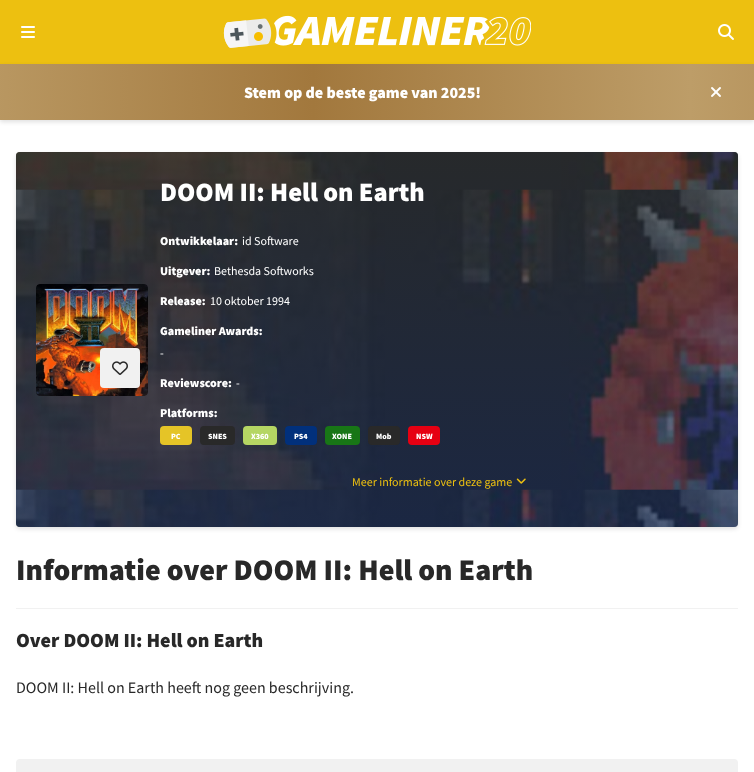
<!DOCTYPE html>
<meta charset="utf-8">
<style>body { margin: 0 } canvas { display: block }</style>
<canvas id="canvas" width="754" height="772"></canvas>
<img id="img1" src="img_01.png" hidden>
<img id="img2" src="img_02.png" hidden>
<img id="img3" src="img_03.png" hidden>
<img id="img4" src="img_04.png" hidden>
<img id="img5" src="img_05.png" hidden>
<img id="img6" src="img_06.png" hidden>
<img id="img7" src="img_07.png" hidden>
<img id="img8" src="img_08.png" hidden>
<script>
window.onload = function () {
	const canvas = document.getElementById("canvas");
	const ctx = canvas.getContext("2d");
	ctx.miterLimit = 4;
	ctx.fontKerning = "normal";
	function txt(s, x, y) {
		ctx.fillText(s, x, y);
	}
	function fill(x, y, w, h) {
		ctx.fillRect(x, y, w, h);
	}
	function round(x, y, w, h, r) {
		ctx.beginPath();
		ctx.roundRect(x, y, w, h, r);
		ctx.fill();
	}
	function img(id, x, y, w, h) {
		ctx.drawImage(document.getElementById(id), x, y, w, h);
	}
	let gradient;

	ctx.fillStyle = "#FFFFFF";
	fill(0, 0, 754, 772);
	ctx.fillStyle = "#EDC010";
	fill(0, 0, 754, 64);
	img("img1", 21, 26, 14, 12);
	img("img2", 223, 15, 308, 33);
	img("img3", 718, 24, 16, 16);
	ctx.fillStyle = "rgba(0, 0, 0, 0.12)";
	ctx.filter = "blur(2px)";
	ctx.beginPath();
	ctx.rect(0, 66, 754, 56);
	ctx.fill();
	ctx.filter = "none";
	gradient = ctx.createLinearGradient(-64, 92, 690, 92);
	gradient.addColorStop(0, "#BD9D68");
	gradient.addColorStop(0.5, "#A2783D");
	gradient.addColorStop(1, "#BD9D68");
	ctx.fillStyle = gradient;
	fill(0, 64, 690, 56);
	gradient = ctx.createLinearGradient(690, 92, 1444, 92);
	gradient.addColorStop(0, "#BD9D68");
	gradient.addColorStop(0.5, "#A2783D");
	gradient.addColorStop(1, "#BD9D68");
	ctx.fillStyle = gradient;
	fill(690, 64, 64, 56);
	img("img4", 711, 87, 10, 10);
	ctx.fillStyle = "rgba(0, 0, 0, 0.12)";
	ctx.filter = "blur(2px)";
	ctx.beginPath();
	ctx.roundRect(16, 154, 722, 375, 4);
	ctx.fill();
	ctx.filter = "none";
	img("img5", 16, 152, 722, 375);
	gradient = ctx.createLinearGradient(377, 527, 377, 152);
	gradient.addColorStop(0, "rgba(23, 37, 74, 0.7)");
	gradient.addColorStop(1, "rgba(40, 40, 40, 0.7)");
	ctx.fillStyle = gradient;
	round(16, 152, 722, 375, 4);
	img("img6", 36, 284, 112, 112);
	ctx.fillStyle = "#F1F1F1";
	round(100, 348, 40, 40, 4);
	img("img7", 112, 361, 16, 14);
	ctx.fillStyle = "#E5C427";
	round(160, 426, 32, 19, 4);
	ctx.fillStyle = "#292929";
	round(200, 426, 35, 19, 4);
	ctx.fillStyle = "#B5D663";
	round(243, 426, 34, 19, 4);
	ctx.fillStyle = "#01307C";
	round(285, 426, 32, 19, 4);
	ctx.fillStyle = "#187616";
	round(325, 426, 35, 19, 4);
	ctx.fillStyle = "#292929";
	round(368, 426, 32, 19, 4);
	ctx.fillStyle = "#E60012";
	round(408, 426, 32, 19, 4);
	img("img8", 516, 478, 10, 6);
	ctx.fillStyle = "#F1F1F1";
	fill(16, 608, 722, 1);
	round(16, 759, 722, 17, 4);
	ctx.font = "900 16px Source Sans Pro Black";
	ctx.fillStyle = "#FFFFFF";
	txt("Stem op de beste game van 2025!", 244, 98);
	ctx.font = "900 26.5px Source Sans Pro Black";
	txt("DOOM II: Hell on Earth", 160, 201);
	ctx.font = "900 12px Source Sans Pro Black";
	txt("Ontwikkelaar:", 160, 245);
	ctx.font = "12px Source Sans Pro";
	txt("id Software", 242, 245);
	ctx.font = "900 12px Source Sans Pro Black";
	txt("Uitgever:", 160, 275);
	ctx.font = "12px Source Sans Pro";
	txt("Bethesda Softworks", 214, 275);
	ctx.font = "900 12px Source Sans Pro Black";
	txt("Release:", 160, 305);
	ctx.font = "12px Source Sans Pro";
	txt("10 oktober 1994", 210, 305);
	ctx.font = "900 12px Source Sans Pro Black";
	txt("Gameliner Awards:", 160, 335);
	ctx.font = "12px Source Sans Pro";
	txt("-", 160, 357);
	ctx.font = "900 12px Source Sans Pro Black";
	txt("Reviewscore:", 160, 387);
	ctx.font = "12px Source Sans Pro";
	txt("-", 236, 387);
	ctx.font = "900 12px Source Sans Pro Black";
	txt("Platforms:", 160, 417);
	ctx.font = "900 8px Source Sans Pro Black";
	txt("PC", 171, 439);
	txt("SNES", 208, 439);
	txt("X360", 251, 439);
	txt("PS4", 294, 439);
	txt("XONE", 332, 439);
	txt("Mob", 376, 439);
	txt("NSW", 416, 439);
	ctx.font = "12px Source Sans Pro";
	ctx.fillStyle = "#EDC010";
	txt("Meer informatie over deze game", 352, 486);
	ctx.font = "900 30px Source Sans Pro Black";
	ctx.fillStyle = "#282828";
	txt("Informatie over DOOM II: Hell on Earth", 16, 580);
	ctx.font = "900 20px Source Sans Pro Black";
	txt("Over DOOM II: Hell on Earth", 16, 647);
	ctx.font = "16px Source Sans Pro";
	txt("DOOM II: Hell on Earth heeft nog geen beschrijving.", 16, 693);
};
</script>
